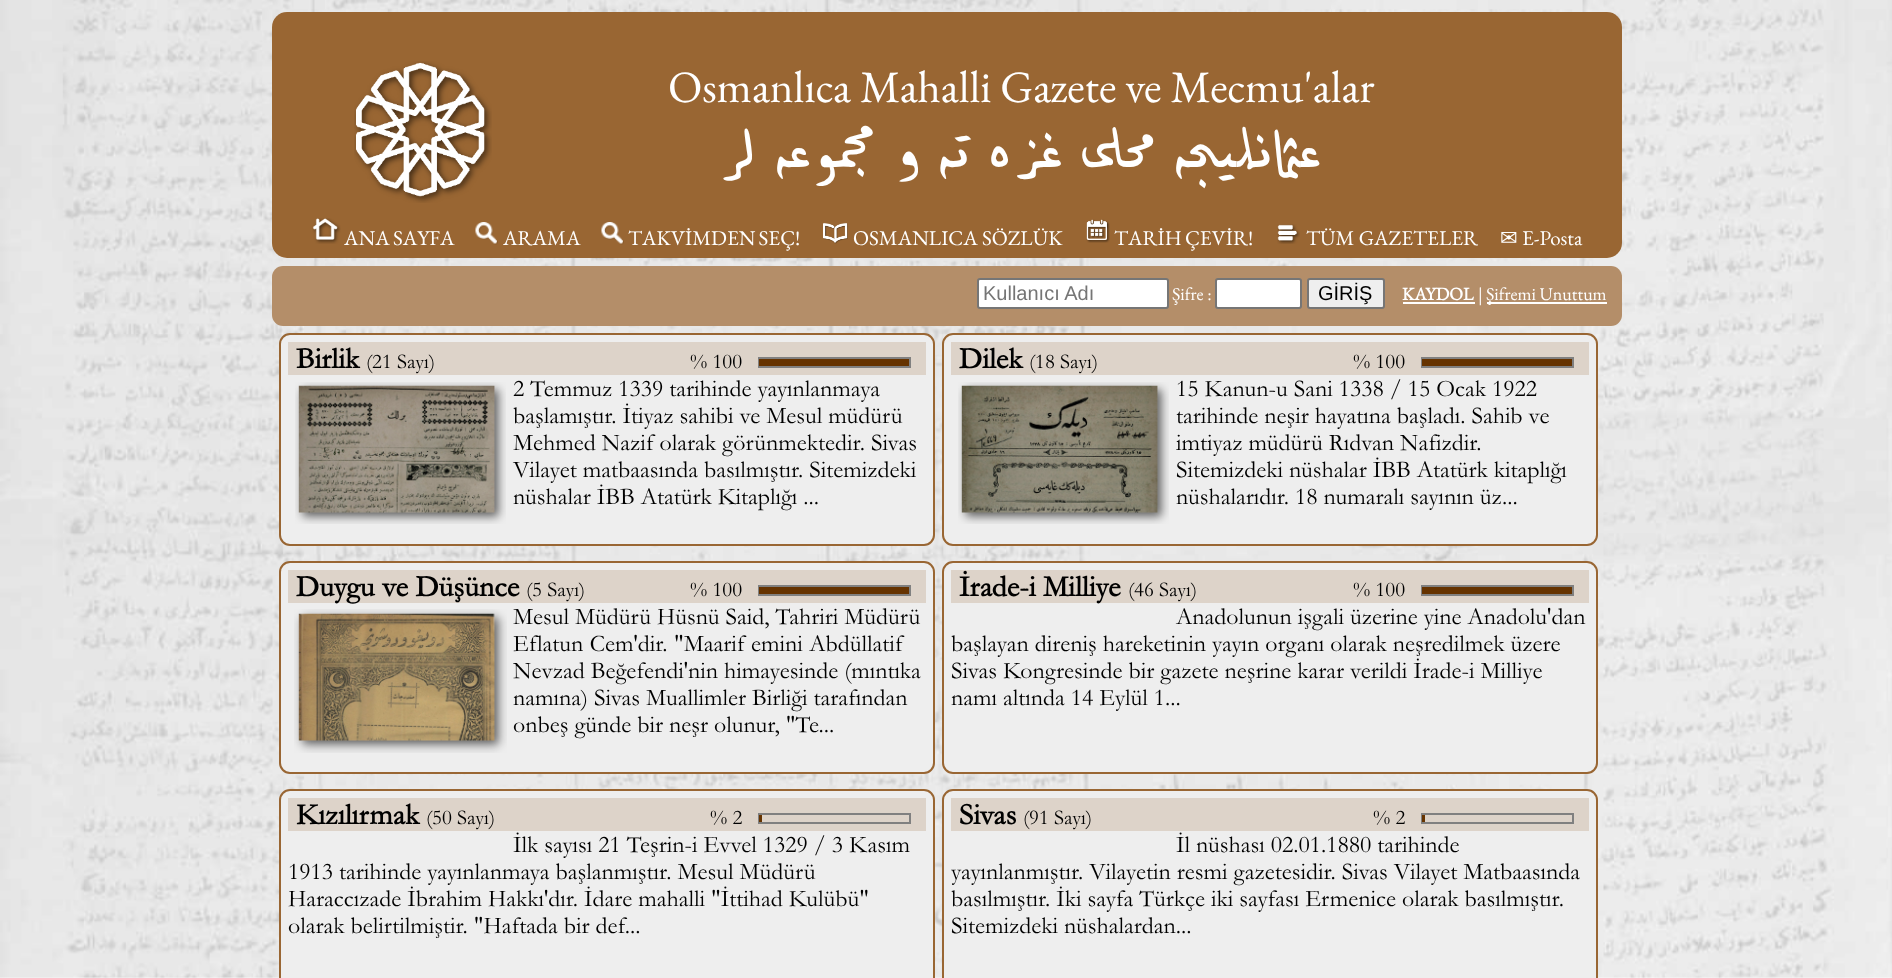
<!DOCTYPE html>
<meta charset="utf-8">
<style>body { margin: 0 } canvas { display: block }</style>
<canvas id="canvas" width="1892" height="978"></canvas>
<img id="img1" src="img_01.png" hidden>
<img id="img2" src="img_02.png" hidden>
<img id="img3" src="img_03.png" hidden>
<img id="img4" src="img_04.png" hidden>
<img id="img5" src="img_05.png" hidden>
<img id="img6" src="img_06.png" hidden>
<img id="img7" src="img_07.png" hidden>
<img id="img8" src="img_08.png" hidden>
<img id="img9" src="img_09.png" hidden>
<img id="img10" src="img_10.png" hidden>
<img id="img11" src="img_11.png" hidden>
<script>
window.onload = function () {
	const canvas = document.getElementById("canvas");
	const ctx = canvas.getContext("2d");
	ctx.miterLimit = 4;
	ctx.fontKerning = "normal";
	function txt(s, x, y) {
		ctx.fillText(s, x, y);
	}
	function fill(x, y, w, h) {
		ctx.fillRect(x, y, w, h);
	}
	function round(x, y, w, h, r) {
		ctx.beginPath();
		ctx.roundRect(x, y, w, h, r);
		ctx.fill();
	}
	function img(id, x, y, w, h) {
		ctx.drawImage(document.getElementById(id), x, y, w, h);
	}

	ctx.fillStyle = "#FFFFFF";
	fill(0, 0, 1892, 978);
	img("img1", 0, 0, 1892, 978);
	ctx.fillStyle = "#996633";
	round(272, 12, 1350, 246, 15);
	img("img2", 354, 61, 138, 142);
	img("img3", 312, 218, 29, 26);
	img("img4", 475, 222, 23, 23);
	img("img5", 601, 222, 23, 23);
	img("img6", 823, 223, 25, 21);
	img("img7", 1086, 219, 24, 24);
	img("img8", 1277, 224, 23, 20);
	ctx.fillStyle = "#B48E69";
	round(272, 266, 1350, 60, 11);
	ctx.fillStyle = "#FFFFFF";
	ctx.beginPath();
	ctx.roundRect(978, 279, 190, 29, 2);
	ctx.fill();
	ctx.strokeStyle = "#767676";
	ctx.lineWidth = 2;
	ctx.stroke();
	ctx.beginPath();
	ctx.roundRect(1216, 279, 85, 29, 2);
	ctx.fill();
	ctx.stroke();
	ctx.fillStyle = "#EFEFEF";
	ctx.beginPath();
	ctx.roundRect(1308, 279, 76, 29, 2);
	ctx.fill();
	ctx.stroke();
	ctx.fillStyle = "#FFFFFF";
	fill(1403, 302, 72, 2);
	fill(1487, 302, 120, 2);
	ctx.fillStyle = "#EEEEEE";
	ctx.beginPath();
	ctx.roundRect(280, 334, 654, 211, 10);
	ctx.fill();
	ctx.strokeStyle = "#996633";
	ctx.stroke();
	ctx.fillStyle = "#DDD3C9";
	fill(288, 342, 638, 33);
	ctx.strokeStyle = "#808080";
	ctx.strokeRect(759, 358, 151, 9);
	ctx.fillStyle = "#663300";
	fill(759, 359, 150, 7);
	img("img9", 295, 382, 211, 142);
	ctx.fillStyle = "#EEEEEE";
	ctx.beginPath();
	ctx.roundRect(943, 334, 654, 211, 10);
	ctx.fill();
	ctx.strokeStyle = "#996633";
	ctx.stroke();
	ctx.fillStyle = "#DDD3C9";
	fill(951, 342, 638, 33);
	ctx.strokeStyle = "#808080";
	ctx.strokeRect(1422, 358, 151, 9);
	ctx.fillStyle = "#663300";
	fill(1422, 359, 150, 7);
	img("img10", 958, 382, 211, 142);
	ctx.fillStyle = "#EEEEEE";
	ctx.beginPath();
	ctx.roundRect(280, 562, 654, 211, 10);
	ctx.fill();
	ctx.strokeStyle = "#996633";
	ctx.stroke();
	ctx.fillStyle = "#DDD3C9";
	fill(288, 570, 638, 33);
	ctx.strokeStyle = "#808080";
	ctx.strokeRect(759, 586, 151, 9);
	ctx.fillStyle = "#663300";
	fill(759, 587, 150, 7);
	img("img11", 294, 609, 213, 144);
	ctx.fillStyle = "#EEEEEE";
	ctx.beginPath();
	ctx.roundRect(943, 562, 654, 211, 10);
	ctx.fill();
	ctx.strokeStyle = "#996633";
	ctx.stroke();
	ctx.fillStyle = "#DDD3C9";
	fill(951, 570, 638, 33);
	ctx.strokeStyle = "#808080";
	ctx.strokeRect(1422, 586, 151, 9);
	ctx.fillStyle = "#663300";
	fill(1422, 587, 150, 7);
	ctx.fillStyle = "#EEEEEE";
	ctx.beginPath();
	ctx.roundRect(280, 790, 654, 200, 10);
	ctx.fill();
	ctx.strokeStyle = "#996633";
	ctx.stroke();
	ctx.fillStyle = "#DDD3C9";
	fill(288, 798, 638, 33);
	ctx.strokeStyle = "#808080";
	ctx.strokeRect(759, 814, 151, 9);
	ctx.fillStyle = "#663300";
	fill(759, 815, 3, 7);
	ctx.fillStyle = "#EEEEEE";
	ctx.beginPath();
	ctx.roundRect(943, 790, 654, 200, 10);
	ctx.fill();
	ctx.strokeStyle = "#996633";
	ctx.stroke();
	ctx.fillStyle = "#DDD3C9";
	fill(951, 798, 638, 33);
	ctx.strokeStyle = "#808080";
	ctx.strokeRect(1422, 814, 151, 9);
	ctx.fillStyle = "#663300";
	fill(1422, 815, 3, 7);
	ctx.font = "45px EB Garamond";
	ctx.fillStyle = "#FFFFFF";
	txt("Osmanlıca Mahalli Gazete ve Mecmu'alar", 668, 102);
	ctx.direction = "rtl";
	ctx.font = "90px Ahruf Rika";
	txt("عثمانليجه محلي غزه ته و مجموعه لر", 1321, 167);
	ctx.wordSpacing = "-1px";
	ctx.direction = "ltr";
	ctx.font = "21px EB Garamond";
	txt("ANA SAYFA", 344, 245);
	ctx.wordSpacing = "0px";
	txt("ARAMA", 503, 245);
	ctx.wordSpacing = "-1px";
	txt("TAKVİMDEN SEÇ!", 628, 245);
	ctx.wordSpacing = "0px";
	txt("OSMANLICA SÖZLÜK", 853, 245);
	ctx.wordSpacing = "-1px";
	txt("TARİH ÇEVİR!", 1114, 245);
	ctx.wordSpacing = "0px";
	txt("TÜM GAZETELER", 1306, 245);
	ctx.font = "21px DejaVu Sans";
	txt("✉", 1500, 245);
	ctx.font = "21px EB Garamond";
	txt("E-Posta", 1522, 245);
	ctx.font = "20px Liberation Sans";
	ctx.fillStyle = "#757575";
	txt("Kullanıcı Adı", 983, 300);
	ctx.font = "18px EB Garamond";
	ctx.fillStyle = "#FFFFFF";
	txt("Şifre :", 1172, 300);
	ctx.font = "20px Liberation Sans";
	ctx.fillStyle = "#000000";
	txt("GİRİŞ", 1318, 300);
	ctx.font = "bold 18px EB Garamond";
	ctx.fillStyle = "#FFFFFF";
	txt("KAYDOL", 1402, 300);
	ctx.font = "18px EB Garamond";
	txt("|", 1478, 300);
	txt("Şifremi Unuttum", 1486, 300);
	ctx.font = "bold 30px Garamond";
	ctx.fillStyle = "#000000";
	txt("Birlik", 296, 368);
	ctx.font = "21px Garamond";
	txt("(21 Sayı)", 366, 368);
	txt("% 100", 690, 368);
	ctx.font = "24px Garamond";
	txt("2 Temmuz 1339 tarihinde yayınlanmaya", 513, 396);
	txt("başlamıştır. İtiyaz sahibi ve Mesul müdürü", 513, 423);
	txt("Mehmed Nazif olarak görünmektedir. Sivas", 513, 450);
	txt("Vilayet matbaasında basılmıştır. Sitemizdeki", 513, 477);
	txt("nüshalar İBB Atatürk Kitaplığı ...", 513, 504);
	ctx.font = "bold 30px Garamond";
	txt("Dilek", 959, 368);
	ctx.font = "21px Garamond";
	txt("(18 Sayı)", 1029, 368);
	txt("% 100", 1353, 368);
	ctx.font = "24px Garamond";
	txt("15 Kanun-u Sani 1338 / 15 Ocak 1922", 1176, 396);
	txt("tarihinde neşir hayatına başladı. Sahib ve", 1176, 423);
	txt("imtiyaz müdürü Rıdvan Nafizdir.", 1176, 450);
	txt("Sitemizdeki nüshalar İBB Atatürk kitaplığı", 1176, 477);
	txt("nüshalarıdır. 18 numaralı sayının üz...", 1176, 504);
	ctx.font = "bold 30px Garamond";
	txt("Duygu ve Düşünce", 296, 596);
	ctx.font = "21px Garamond";
	txt("(5 Sayı)", 526, 596);
	txt("% 100", 690, 596);
	ctx.font = "24px Garamond";
	txt("Mesul Müdürü Hüsnü Said, Tahriri Müdürü", 513, 624);
	ctx.wordSpacing = "0.5px";
	txt("Eflatun Cem'dir. \"Maarif emini Abdüllatif", 513, 651);
	ctx.wordSpacing = "0px";
	txt("Nevzad Beğefendi'nin himayesinde (mıntıka", 513, 678);
	txt("namına) Sivas Muallimler Birliği tarafından", 513, 705);
	txt("onbeş günde bir neşr olunur, \"Te...", 513, 732);
	ctx.font = "bold 30px Garamond";
	txt("İrade-i Milliye", 959, 596);
	ctx.font = "21px Garamond";
	txt("(46 Sayı)", 1128, 596);
	txt("% 100", 1353, 596);
	ctx.font = "24px Garamond";
	txt("Anadolunun işgali üzerine yine Anadolu'dan", 1176, 624);
	txt("başlayan direniş hareketinin yayın organı olarak neşredilmek üzere", 951, 651);
	txt("Sivas Kongresinde bir gazete neşrine karar verildi İrade-i Milliye", 951, 678);
	txt("namı altında 14 Eylül 1...", 951, 705);
	ctx.font = "bold 30px Garamond";
	txt("Kızılırmak", 296, 824);
	ctx.font = "21px Garamond";
	txt("(50 Sayı)", 426, 824);
	txt("% 2", 710, 824);
	ctx.font = "24px Garamond";
	txt("İlk sayısı 21 Teşrin-i Evvel 1329 / 3 Kasım", 513, 852);
	txt("1913 tarihinde yayınlanmaya başlanmıştır. Mesul Müdürü", 288, 879);
	txt("Haraccızade İbrahim Hakkı'dır. İdare mahalli \"İttihad Kulübü\"", 288, 906);
	txt("olarak belirtilmiştir. \"Haftada bir def...", 288, 933);
	ctx.font = "bold 30px Garamond";
	txt("Sivas", 959, 824);
	ctx.font = "21px Garamond";
	txt("(91 Sayı)", 1023, 824);
	txt("% 2", 1373, 824);
	ctx.font = "24px Garamond";
	txt("İl nüshası 02.01.1880 tarihinde", 1176, 852);
	txt("yayınlanmıştır. Vilayetin resmi gazetesidir. Sivas Vilayet Matbaasında", 951, 879);
	txt("basılmıştır. İki sayfa Türkçe iki sayfası Ermenice olarak basılmıştır.", 951, 906);
	txt("Sitemizdeki nüshalardan...", 951, 933);
};
</script>
